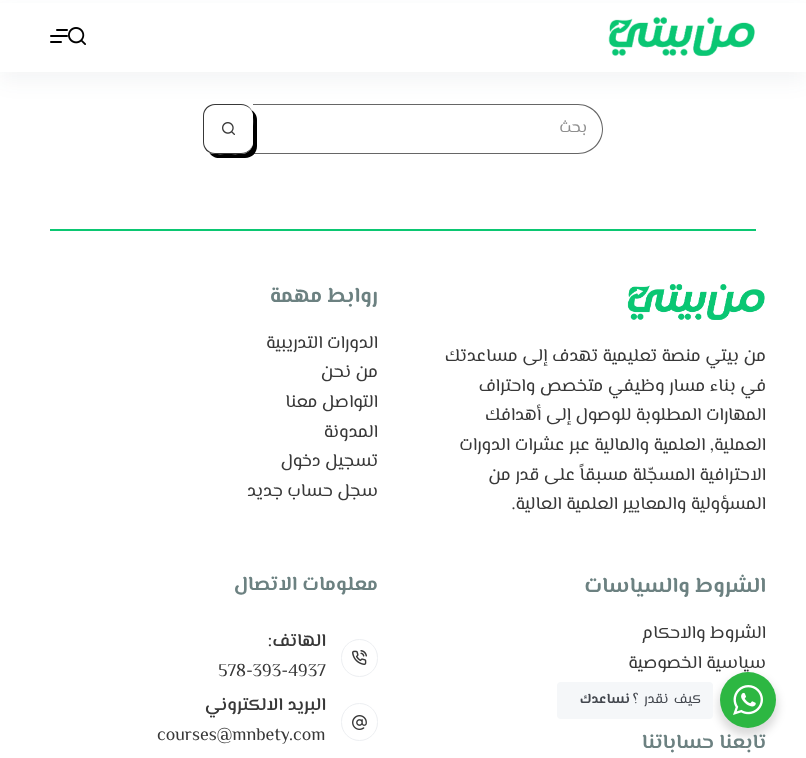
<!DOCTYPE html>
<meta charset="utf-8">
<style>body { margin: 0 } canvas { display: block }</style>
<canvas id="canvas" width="806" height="758"></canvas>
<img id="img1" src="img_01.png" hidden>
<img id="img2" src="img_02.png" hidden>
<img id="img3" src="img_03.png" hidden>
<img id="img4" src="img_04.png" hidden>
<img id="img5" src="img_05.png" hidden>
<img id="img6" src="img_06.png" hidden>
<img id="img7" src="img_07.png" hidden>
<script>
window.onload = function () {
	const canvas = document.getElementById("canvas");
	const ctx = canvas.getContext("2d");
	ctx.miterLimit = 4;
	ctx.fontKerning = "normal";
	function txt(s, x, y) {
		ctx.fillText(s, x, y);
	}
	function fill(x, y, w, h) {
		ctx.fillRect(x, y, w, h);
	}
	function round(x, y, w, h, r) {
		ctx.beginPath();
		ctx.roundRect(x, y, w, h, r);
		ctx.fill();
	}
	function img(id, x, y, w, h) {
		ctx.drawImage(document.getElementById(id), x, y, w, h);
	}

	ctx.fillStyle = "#FFFFFF";
	fill(0, 0, 806, 758);
	ctx.fillStyle = "#666666";
	ctx.beginPath();
	ctx.moveTo(253, 104);
	ctx.lineTo(578, 104);
	ctx.bezierCurveTo(592, 104, 603, 115, 603, 129);
	ctx.bezierCurveTo(603, 143, 592, 154, 578, 154);
	ctx.lineTo(253, 154);
	ctx.closePath();
	ctx.moveTo(253, 105);
	ctx.lineTo(578, 105);
	ctx.bezierCurveTo(591, 105, 602, 116, 602, 129);
	ctx.bezierCurveTo(602, 142, 591, 153, 578, 153);
	ctx.lineTo(253, 153);
	ctx.closePath();
	ctx.fill("evenodd");
	ctx.fillStyle = "#000000";
	ctx.beginPath();
	ctx.moveTo(209, 152);
	ctx.bezierCurveTo(211, 156, 215, 158, 219, 158);
	ctx.lineTo(245, 158);
	ctx.bezierCurveTo(252, 158, 257, 153, 257, 146);
	ctx.lineTo(257, 120);
	ctx.bezierCurveTo(257, 116, 255, 112, 251, 110);
	ctx.bezierCurveTo(254, 115, 253, 123, 253, 129);
	ctx.lineTo(253, 144);
	ctx.bezierCurveTo(250, 156, 237, 154, 228, 154);
	ctx.bezierCurveTo(222, 154, 214, 155, 209, 152);
	ctx.closePath();
	ctx.fill();
	ctx.fillStyle = "#FFFFFF";
	round(203, 104, 50, 50, 12);
	ctx.fillStyle = "#383838";
	ctx.beginPath();
	ctx.moveTo(215, 104);
	ctx.lineTo(241, 104);
	ctx.bezierCurveTo(248, 104, 253, 109, 253, 116);
	ctx.lineTo(253, 142);
	ctx.bezierCurveTo(253, 149, 248, 154, 241, 154);
	ctx.lineTo(215, 154);
	ctx.bezierCurveTo(208, 154, 203, 149, 203, 142);
	ctx.lineTo(203, 116);
	ctx.bezierCurveTo(203, 109, 208, 104, 215, 104);
	ctx.closePath();
	ctx.moveTo(215, 105);
	ctx.lineTo(241, 105);
	ctx.bezierCurveTo(248, 105, 253, 110, 253, 116);
	ctx.lineTo(253, 142);
	ctx.bezierCurveTo(253, 148, 248, 153, 241, 153);
	ctx.lineTo(215, 153);
	ctx.bezierCurveTo(209, 153, 204, 148, 204, 142);
	ctx.lineTo(204, 116);
	ctx.bezierCurveTo(204, 110, 209, 105, 215, 105);
	ctx.closePath();
	ctx.fill("evenodd");
	ctx.fillStyle = "rgba(44, 62, 80, 0.05)";
	ctx.filter = "blur(10px)";
	ctx.beginPath();
	ctx.rect(0, 10, 806, 72);
	ctx.fill();
	ctx.filter = "none";
	ctx.fillStyle = "#FFFFFF";
	fill(0, 3, 806, 69);
	img("img1", 608, 16, 147, 40);
	img("img2", 68, 27, 18, 18);
	ctx.fillStyle = "#000000";
	round(56, 29, 12, 2, 1);
	round(50, 35, 18, 2, 1);
	round(50, 41, 12, 2, 1);
	img("img3", 222, 122, 13, 13);
	ctx.fillStyle = "#0BC772";
	fill(50, 229, 706, 2);
	img("img4", 627, 284, 138, 36);
	ctx.beginPath();
	ctx.roundRect(341.5, 639.5, 36, 37, 18);
	ctx.strokeStyle = "#EDEFF2";
	ctx.stroke();
	img("img5", 352, 650, 15, 15);
	ctx.beginPath();
	ctx.roundRect(341.5, 703.5, 36, 37, 18);
	ctx.stroke();
	img("img6", 352, 715, 15, 15);
	ctx.fillStyle = "rgba(0, 0, 0, 0.14)";
	ctx.filter = "blur(4px)";
	ctx.beginPath();
	ctx.roundRect(718, 676, 60, 60, 30);
	ctx.fill();
	ctx.filter = "none";
	ctx.fillStyle = "#F5F7F9";
	round(557, 682, 156, 37, 4);
	ctx.direction = "rtl";
	ctx.font = "16px El Messiri";
	ctx.fillStyle = "#8F8F8F";
	txt("بحث", 587, 132);
	ctx.font = "18px El Messiri";
	ctx.fillStyle = "#383838";
	txt("من بيتي منصة تعليمية تهدف إلى مساعدتك", 766, 361);
	txt("في بناء مسار وظيفي متخصص واحتراف", 766, 391);
	txt("المهارات المطلوبة للوصول إلى أهدافك", 766, 420);
	txt("العملية, العلمية والمالية عبر عشرات الدورات", 766, 450);
	txt("الاحترافية المسجّلة مسبقاً على قدر من", 766, 480);
	txt("المسؤولية والمعايير العلمية العالية.", 766, 509);
	ctx.font = "bold 21.5px El Messiri";
	ctx.fillStyle = "#6C8181";
	txt("روابط مهمة", 378, 302);
	ctx.font = "18px El Messiri";
	ctx.fillStyle = "#383838";
	txt("الدورات التدريبية", 378, 348);
	txt("من نحن", 378, 377);
	txt("التواصل معنا", 378, 407);
	txt("المدونة", 378, 437);
	txt("تسجيل دخول", 378, 466);
	txt("سجل حساب جديد", 378, 496);
	ctx.font = "bold 21.5px El Messiri";
	ctx.fillStyle = "#6C8181";
	txt("الشروط والسياسات", 766, 592);
	ctx.font = "18px El Messiri";
	ctx.fillStyle = "#383838";
	txt("الشروط والاحكام", 766, 638);
	txt("سياسية الخصوصية", 766, 668);
	ctx.font = "bold 20px El Messiri";
	ctx.fillStyle = "#6C8181";
	txt("تابعنا حساباتنا", 766, 748);
	txt("معلومات الاتصال", 378, 590);
	ctx.font = "600 18px El Messiri";
	ctx.fillStyle = "#383838";
	txt("الهاتف:", 326, 646);
	ctx.direction = "ltr";
	ctx.font = "18px El Messiri";
	txt("578-393-4937", 218, 676);
	ctx.direction = "rtl";
	ctx.font = "600 18px El Messiri";
	txt("البريد الالكتروني", 326, 710);
	ctx.direction = "ltr";
	ctx.font = "18px El Messiri";
	txt("courses@mnbety.com", 157, 740);
	ctx.fillStyle = "#2DB742";
	ctx.beginPath();
	ctx.arc(748, 700, 28, 0, Math.PI * 2);
	ctx.fill();
	img("img7", 733, 685, 30, 30);
	ctx.letterSpacing = "-0.5px";
	ctx.wordSpacing = "2px";
	ctx.direction = "rtl";
	ctx.font = "14px El Messiri";
	ctx.fillStyle = "#43474E";
	txt("كيف نقدر ؟", 701, 703);
	ctx.wordSpacing = "0px";
	ctx.font = "bold 14px El Messiri";
	txt("نساعدك", 630, 703);
};
</script>
